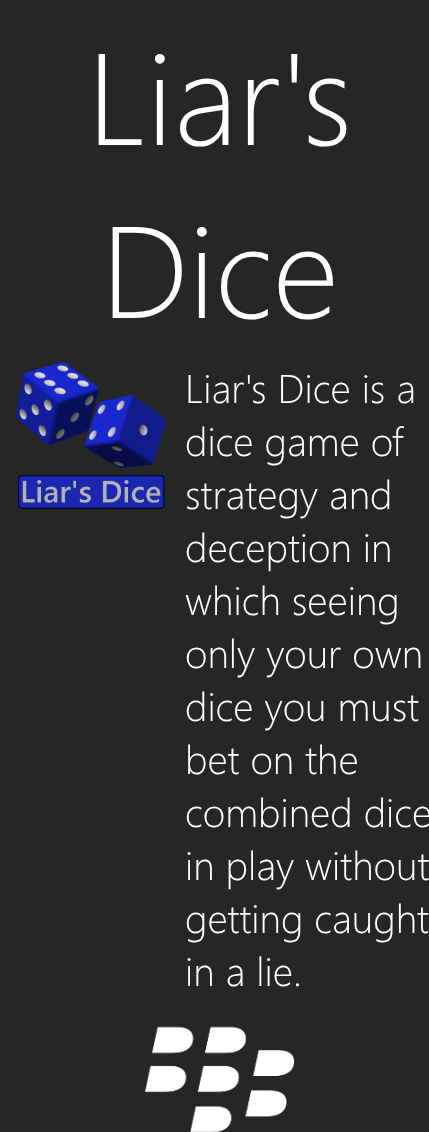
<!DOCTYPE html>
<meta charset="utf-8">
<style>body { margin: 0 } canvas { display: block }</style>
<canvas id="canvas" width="429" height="1132"></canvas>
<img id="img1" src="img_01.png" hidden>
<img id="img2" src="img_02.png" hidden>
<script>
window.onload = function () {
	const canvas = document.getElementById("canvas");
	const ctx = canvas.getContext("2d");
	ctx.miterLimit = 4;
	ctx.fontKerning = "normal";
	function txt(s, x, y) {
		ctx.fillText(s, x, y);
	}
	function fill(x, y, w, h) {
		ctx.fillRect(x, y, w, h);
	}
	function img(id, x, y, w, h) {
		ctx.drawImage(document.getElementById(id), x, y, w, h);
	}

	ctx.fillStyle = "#262626";
	fill(0, 0, 429, 1132);
	img("img1", 15, 361, 151, 148);
	img("img2", 145, 1026, 150, 106);
	ctx.font = "300 130px Segoe UI";
	ctx.fillStyle = "#FFFFFF";
	txt("Liar's", 87, 145);
	txt("Dice", 101, 318);
	ctx.font = "300 40px Segoe UI";
	txt("Liar's Dice is a", 185, 403);
	txt("dice game of", 185, 456);
	txt("strategy and", 185, 509);
	txt("deception in", 185, 562);
	txt("which seeing", 185, 615);
	txt("only your own", 185, 668);
	txt("dice you must", 185, 721);
	txt("bet on the", 185, 774);
	txt("combined dice", 185, 827);
	txt("in play without", 185, 880);
	txt("getting caught", 185, 933);
	txt("in a lie.", 185, 986);
};
</script>
